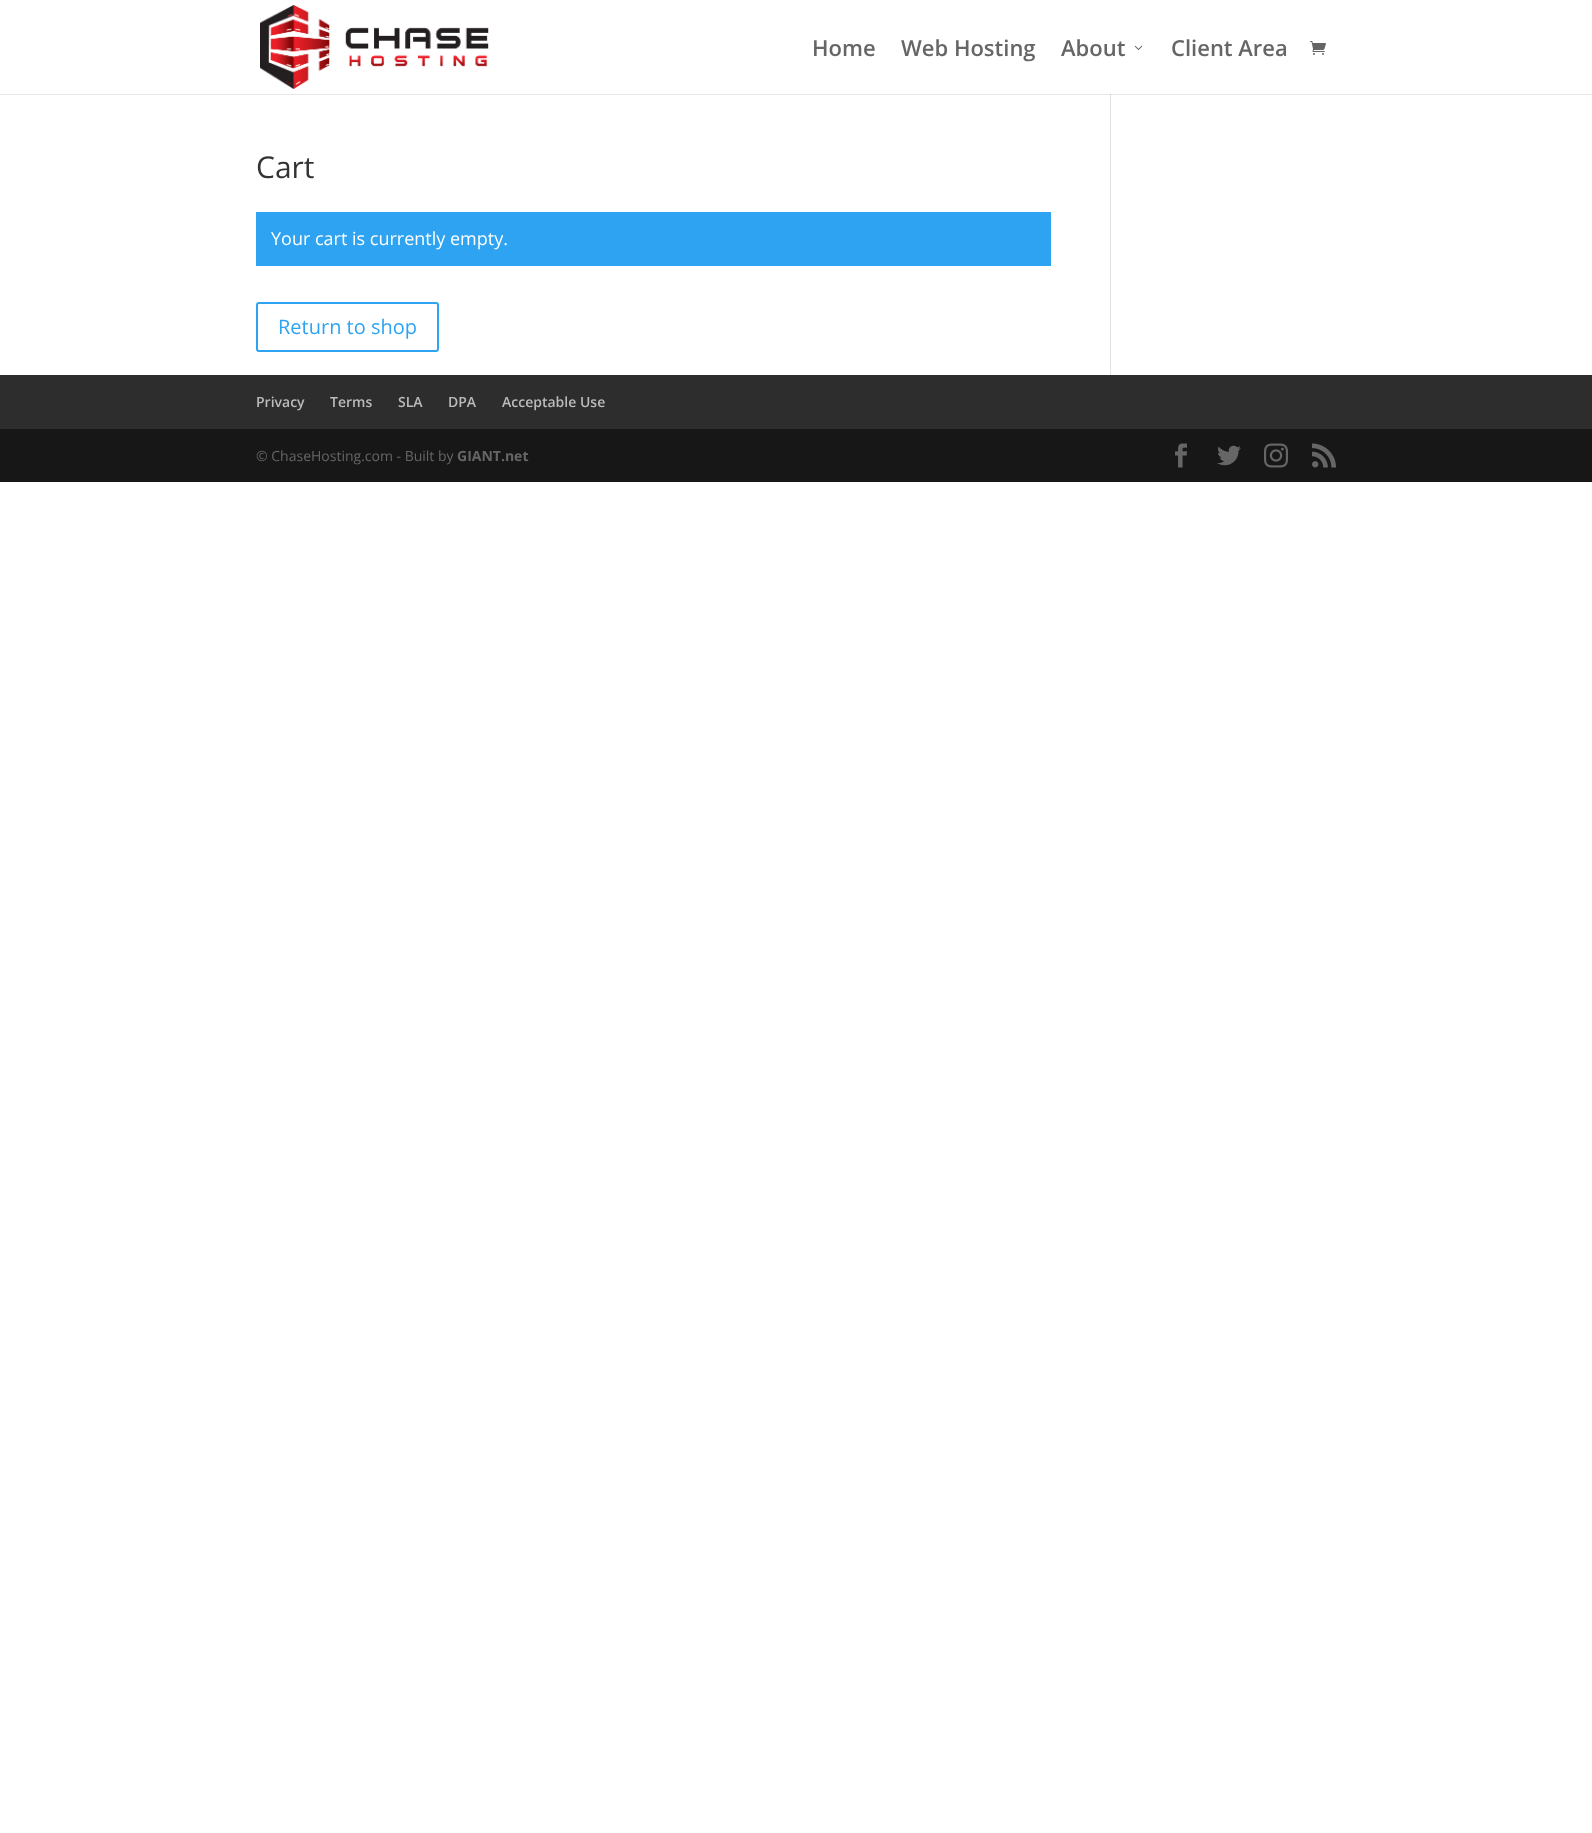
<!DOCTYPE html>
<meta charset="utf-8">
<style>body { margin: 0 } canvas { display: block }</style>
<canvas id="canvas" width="1592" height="1833"></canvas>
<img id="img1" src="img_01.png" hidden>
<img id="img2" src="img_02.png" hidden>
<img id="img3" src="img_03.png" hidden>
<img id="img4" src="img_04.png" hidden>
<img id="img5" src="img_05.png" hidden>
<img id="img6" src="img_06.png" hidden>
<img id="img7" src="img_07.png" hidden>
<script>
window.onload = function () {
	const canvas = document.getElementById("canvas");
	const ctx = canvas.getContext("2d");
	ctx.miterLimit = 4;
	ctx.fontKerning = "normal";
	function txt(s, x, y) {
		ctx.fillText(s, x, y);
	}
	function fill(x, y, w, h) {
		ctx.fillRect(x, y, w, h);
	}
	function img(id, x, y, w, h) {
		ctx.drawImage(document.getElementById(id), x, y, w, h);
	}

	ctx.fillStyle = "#FFFFFF";
	fill(0, 0, 1592, 1833);
	ctx.fillStyle = "#E6E6E6";
	fill(0, 94, 1592, 1);
	img("img1", 260, 5, 229, 84);
	img("img2", 1134, 45, 9, 5);
	img("img3", 1310, 41, 16, 14);
	ctx.fillStyle = "#2EA3F2";
	fill(256, 212, 795, 54);
	ctx.beginPath();
	ctx.roundRect(257, 303, 181, 48, 2);
	ctx.strokeStyle = "#2EA3F2";
	ctx.lineWidth = 2;
	ctx.stroke();
	ctx.fillStyle = "#E2E2E2";
	fill(1110, 94, 1, 281);
	ctx.fillStyle = "#CBCBCB";
	fill(1110, 94, 1, 1);
	ctx.fillStyle = "#2D2D2D";
	fill(0, 375, 1592, 54);
	ctx.fillStyle = "#171717";
	fill(0, 429, 1592, 53);
	img("img4", 1175, 443, 12, 25);
	img("img5", 1217, 445, 24, 21);
	img("img6", 1264, 443, 24, 25);
	img("img7", 1312, 443, 24, 25);
	ctx.font = "600 22px Open Sans";
	ctx.fillStyle = "#666666";
	txt("Home", 812, 56);
	txt("Web Hosting", 901, 56);
	txt("About", 1061, 56);
	txt("Client Area", 1171, 56);
	ctx.font = "30px Open Sans";
	ctx.fillStyle = "#333333";
	txt("Cart", 256, 178);
	ctx.font = "18px Open Sans";
	ctx.fillStyle = "#FFFFFF";
	txt("Your cart is currently empty.", 271, 245);
	ctx.font = "20px Open Sans";
	ctx.fillStyle = "#2EA3F2";
	txt("Return to shop", 278, 334);
	ctx.font = "600 14px Open Sans";
	ctx.fillStyle = "#BBBBBB";
	txt("Privacy", 256, 407);
	txt("Terms", 330, 407);
	txt("SLA", 398, 407);
	txt("DPA", 448, 407);
	txt("Acceptable Use", 502, 407);
	ctx.font = "14px Open Sans";
	ctx.fillStyle = "#666666";
	txt("© ChaseHosting.com - Built by", 256, 461);
	ctx.font = "bold 14px Open Sans";
	txt("GIANT.net", 457, 461);
};
</script>
